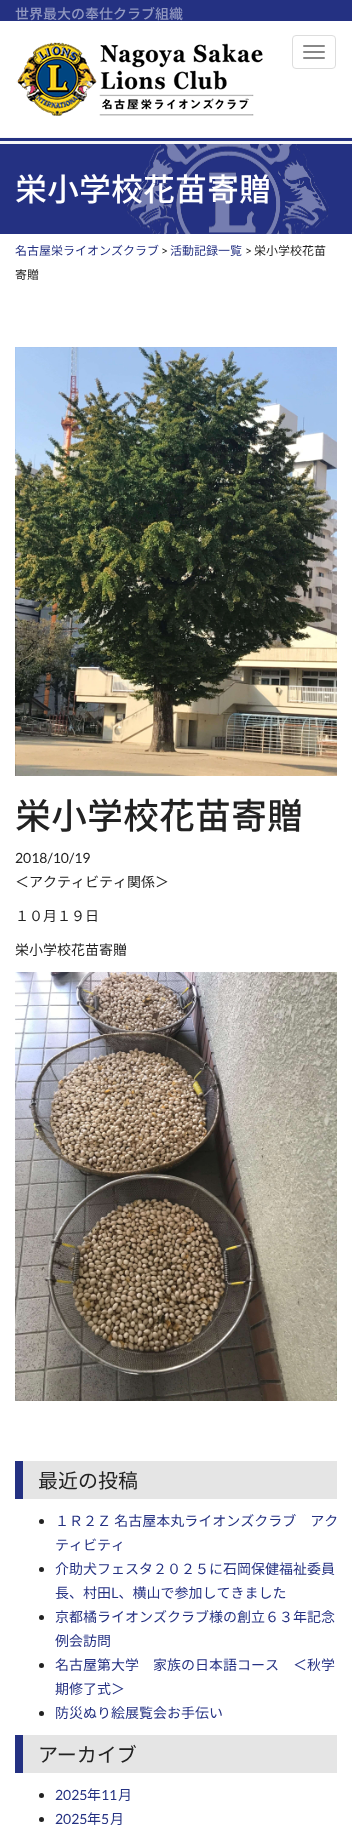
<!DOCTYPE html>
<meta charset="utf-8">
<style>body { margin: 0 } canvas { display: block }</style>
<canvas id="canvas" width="352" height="1837"></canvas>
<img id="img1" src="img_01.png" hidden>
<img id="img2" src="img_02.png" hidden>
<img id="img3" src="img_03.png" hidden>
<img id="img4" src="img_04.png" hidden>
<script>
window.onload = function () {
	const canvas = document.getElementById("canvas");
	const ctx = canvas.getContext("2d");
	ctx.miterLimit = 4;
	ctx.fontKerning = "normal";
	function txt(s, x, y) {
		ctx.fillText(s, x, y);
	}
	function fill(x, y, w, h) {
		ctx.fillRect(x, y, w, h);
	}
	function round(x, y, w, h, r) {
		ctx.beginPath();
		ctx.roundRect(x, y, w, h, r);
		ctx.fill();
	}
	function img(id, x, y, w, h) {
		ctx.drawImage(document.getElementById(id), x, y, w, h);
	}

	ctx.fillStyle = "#FFFFFF";
	fill(0, 0, 352, 1837);
	ctx.fillStyle = "#243182";
	fill(0, 0, 352, 21);
	img("img1", 16, 42, 247, 74);
	ctx.beginPath();
	ctx.roundRect(292.5, 35.5, 43, 33, 3.5);
	ctx.strokeStyle = "#DDDDDD";
	ctx.stroke();
	ctx.fillStyle = "#888888";
	round(303, 45, 22, 2, 1);
	round(303, 51, 22, 2, 1);
	round(303, 57, 22, 2, 1);
	ctx.fillStyle = "#243182";
	fill(0, 138, 352, 96);
	ctx.fillStyle = "#F7F7F7";
	fill(0, 137, 352, 1);
	fill(0, 141, 352, 3);
	img("img2", 127, 144, 202, 90);
	img("img3", 15, 347, 322, 429);
	img("img4", 15, 972, 322, 429);
	ctx.fillStyle = "#E5E5E5";
	fill(23, 1461, 314, 38);
	ctx.fillStyle = "#243182";
	fill(15, 1461, 8, 38);
	ctx.fillStyle = "#222222";
	ctx.beginPath();
	ctx.arc(41.5, 1521.5, 2.5, 0, Math.PI * 2);
	ctx.fill();
	ctx.beginPath();
	ctx.arc(41.5, 1569.5, 2.5, 0, Math.PI * 2);
	ctx.fill();
	ctx.beginPath();
	ctx.arc(41.5, 1617.5, 2.5, 0, Math.PI * 2);
	ctx.fill();
	ctx.beginPath();
	ctx.arc(41.5, 1665.5, 2.5, 0, Math.PI * 2);
	ctx.fill();
	ctx.beginPath();
	ctx.arc(41.5, 1713.5, 2.5, 0, Math.PI * 2);
	ctx.fill();
	ctx.fillStyle = "#E5E5E5";
	fill(23, 1735, 314, 38);
	ctx.fillStyle = "#243182";
	fill(15, 1735, 8, 38);
	ctx.fillStyle = "#222222";
	ctx.beginPath();
	ctx.arc(41.5, 1795.5, 2.5, 0, Math.PI * 2);
	ctx.fill();
	ctx.beginPath();
	ctx.arc(41.5, 1819.5, 2.5, 0, Math.PI * 2);
	ctx.fill();
	ctx.font = "500 14px Noto Sans JP";
	ctx.fillStyle = "#9198C0";
	txt("世界最大の奉仕クラブ組織", 15, 19);
	ctx.font = "500 32px Noto Sans JP";
	ctx.fillStyle = "#FFFFFF";
	txt("栄小学校花苗寄贈", 15, 201);
	ctx.font = "12px Noto Sans JP";
	ctx.fillStyle = "#243182";
	txt("名古屋栄ライオンズクラブ", 15, 255);
	ctx.font = "12px Lato";
	ctx.fillStyle = "#222222";
	txt(">", 161, 255);
	ctx.font = "12px Noto Sans JP";
	ctx.fillStyle = "#243182";
	txt("活動記録一覧", 170, 255);
	ctx.font = "12px Lato";
	ctx.fillStyle = "#222222";
	txt(">", 245, 255);
	ctx.font = "12px Noto Sans JP";
	txt("栄小学校花苗", 254, 255);
	txt("寄贈", 15, 279);
	ctx.font = "500 36px Noto Sans JP";
	txt("栄小学校花苗寄贈", 15, 829);
	ctx.font = "14px Lato";
	txt("2018/10/19", 15, 863);
	ctx.font = "14px Noto Sans JP";
	txt("＜アクティビティ関係＞", 15, 887);
	txt("１０月１９日", 15, 921);
	txt("栄小学校花苗寄贈", 15, 955);
	ctx.font = "20px Noto Sans JP";
	txt("最近の投稿", 38, 1488);
	ctx.font = "14px Noto Sans JP";
	ctx.fillStyle = "#243182";
	txt("１Ｒ２Ｚ 名古屋本丸ライオンズクラブ　アク", 55, 1526);
	txt("ティビティ", 55, 1550);
	txt("介助犬フェスタ２０２５に石岡保健福祉委員", 55, 1574);
	txt("長、村田L、横山で参加してきました", 55, 1598);
	txt("京都橘ライオンズクラブ様の創立６３年記念", 55, 1622);
	txt("例会訪問", 55, 1646);
	txt("名古屋第大学　家族の日本語コース　＜秋学", 55, 1670);
	txt("期修了式＞", 55, 1694);
	txt("防災ぬり絵展覧会お手伝い", 55, 1718);
	ctx.font = "20px Noto Sans JP";
	ctx.fillStyle = "#222222";
	txt("アーカイブ", 38, 1762);
	ctx.font = "14px Lato";
	ctx.fillStyle = "#243182";
	txt("2025", 55, 1800);
	ctx.font = "14px Noto Sans JP";
	txt("年", 87, 1800);
	ctx.font = "14px Lato";
	txt("11", 101, 1800);
	ctx.font = "14px Noto Sans JP";
	txt("月", 118, 1800);
	ctx.font = "14px Lato";
	txt("2025", 55, 1824);
	ctx.font = "14px Noto Sans JP";
	txt("年", 87, 1824);
	ctx.font = "14px Lato";
	txt("5", 101, 1824);
	ctx.font = "14px Noto Sans JP";
	txt("月", 110, 1824);
};
</script>
